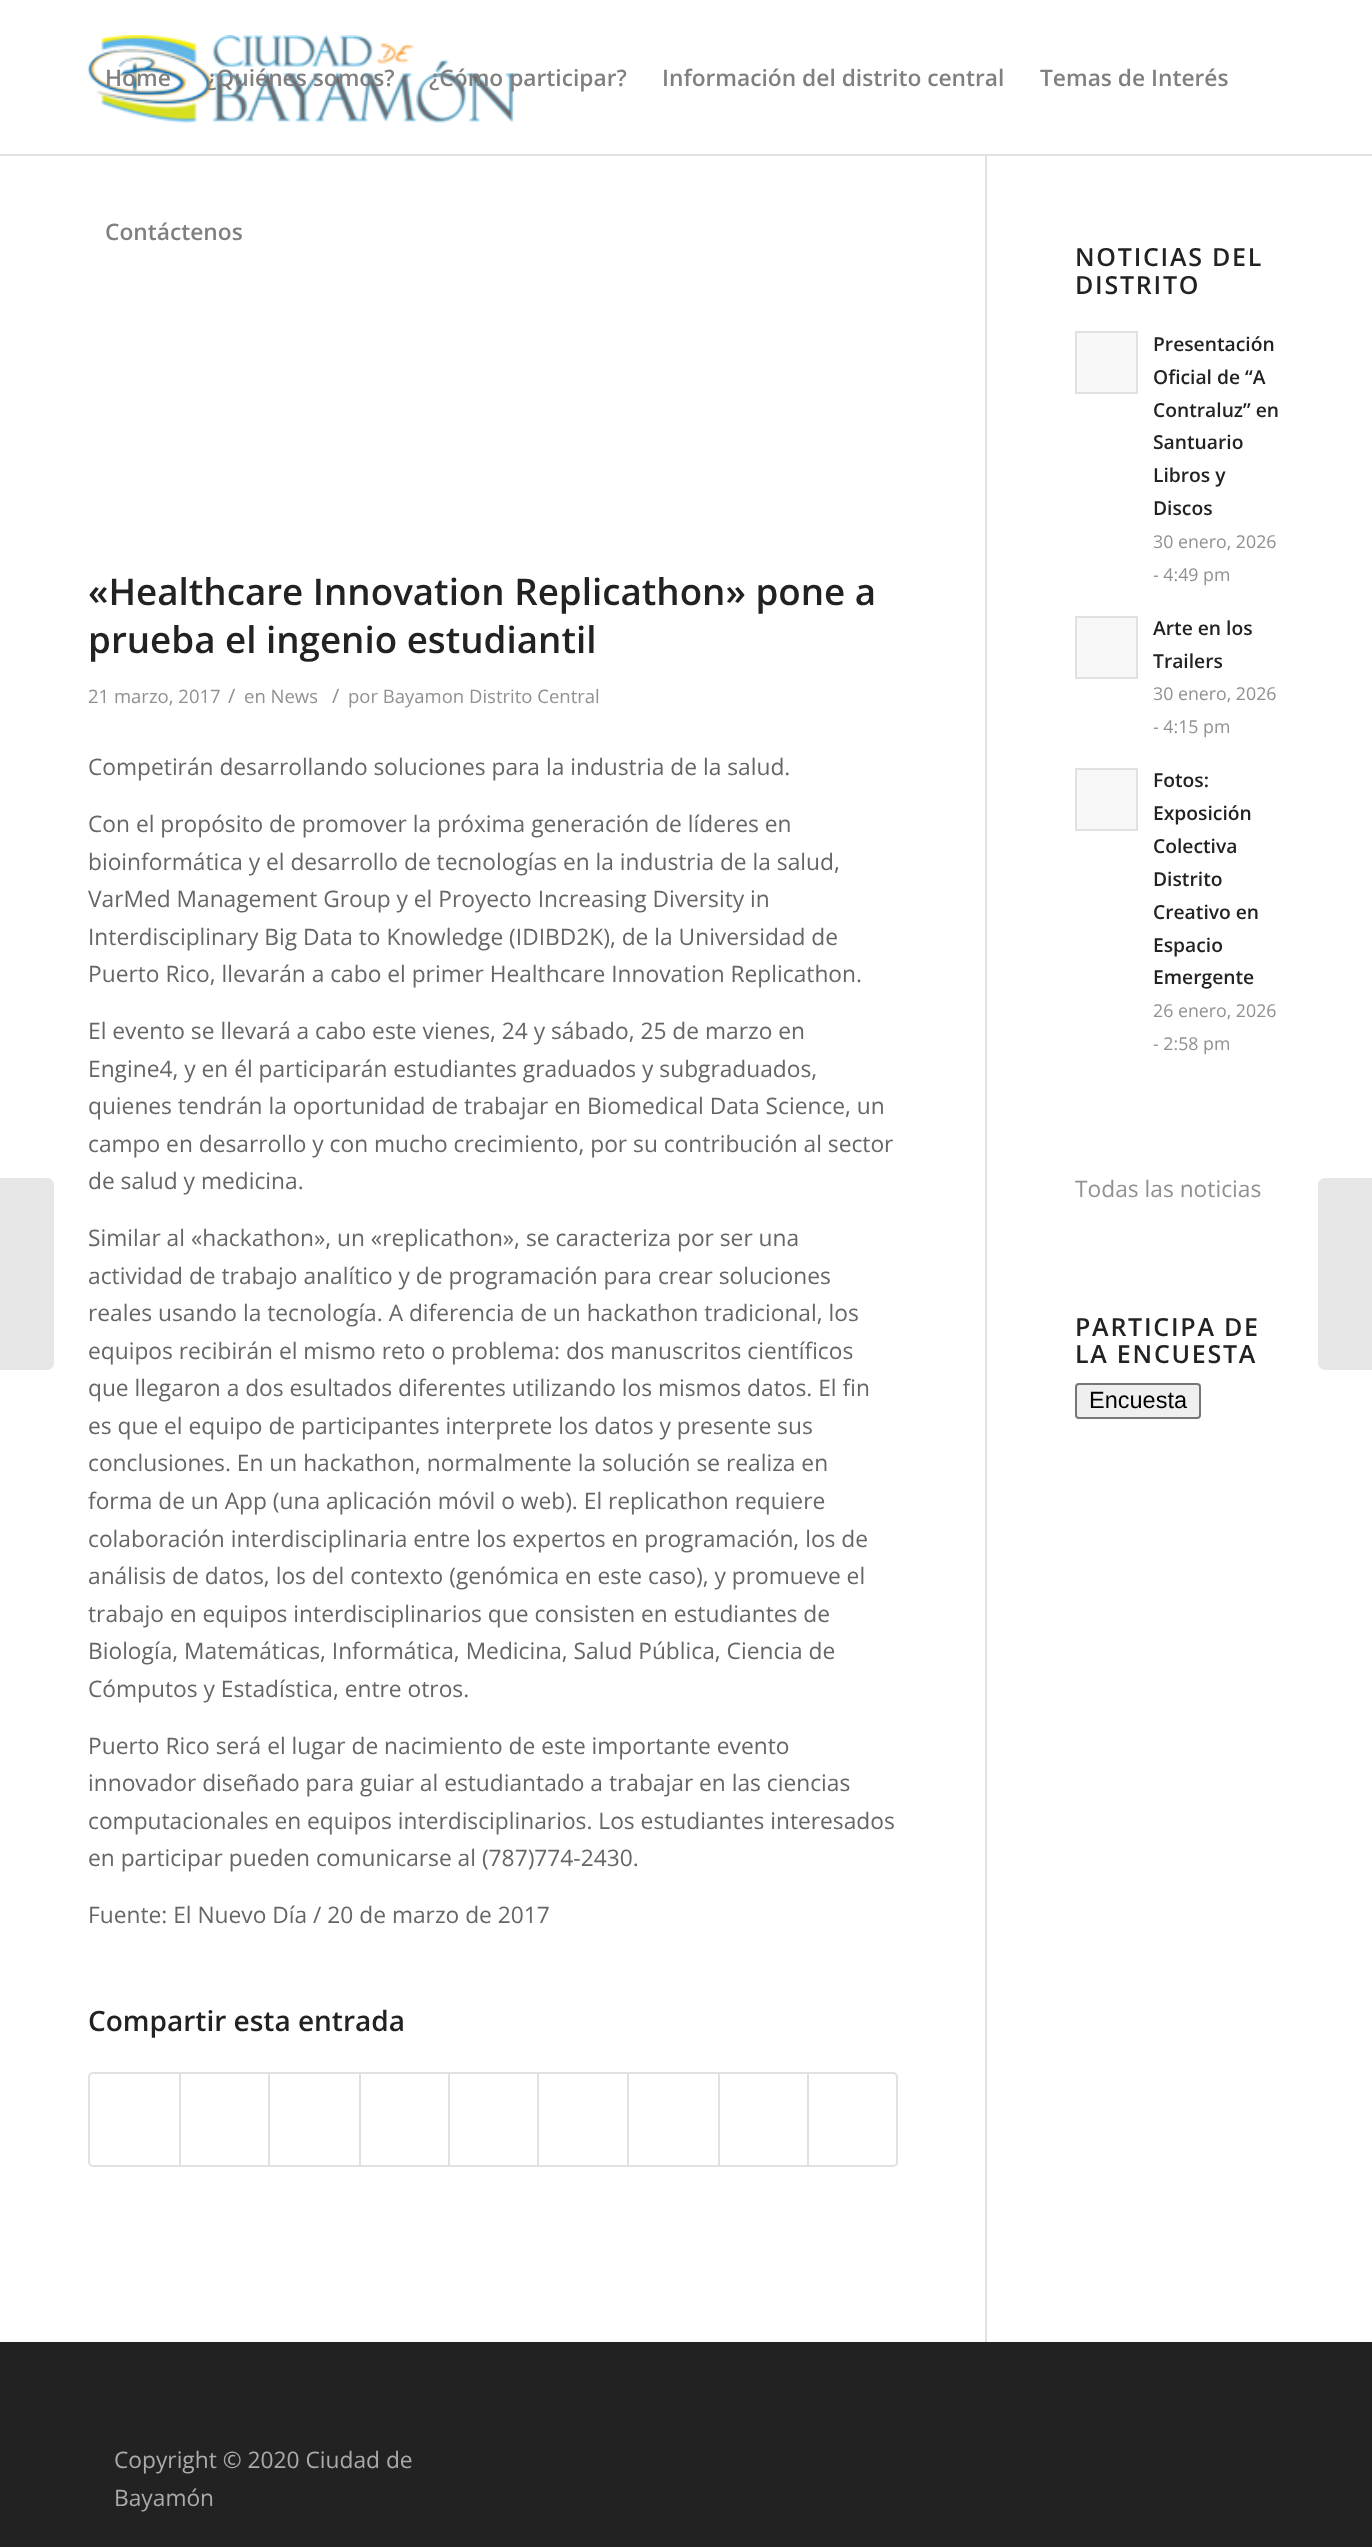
<!DOCTYPE html>
<meta charset="utf-8">
<style>body { margin: 0 } canvas { display: block }</style>
<canvas id="canvas" width="1372" height="2547"></canvas>
<img id="img1" src="img_01.png" hidden>
<script>
window.onload = function () {
	const canvas = document.getElementById("canvas");
	const ctx = canvas.getContext("2d");
	ctx.miterLimit = 4;
	ctx.fontKerning = "normal";
	function txt(s, x, y) {
		ctx.fillText(s, x, y);
	}
	function fill(x, y, w, h) {
		ctx.fillRect(x, y, w, h);
	}
	function img(id, x, y, w, h) {
		ctx.drawImage(document.getElementById(id), x, y, w, h);
	}

	ctx.fillStyle = "#FFFFFF";
	fill(0, 0, 1372, 2547);
	ctx.fillStyle = "#E1E1E1";
	fill(0, 154, 1372, 2);
	img("img1", 87, 35, 430, 88);
	ctx.fillStyle = "#E6E6E6";
	ctx.beginPath();
	ctx.roundRect(0, 1178, 54, 192, [0, 7, 7, 0]);
	ctx.fill();
	ctx.fillStyle = "#E1E1E1";
	fill(985, 156, 2, 2186);
	ctx.beginPath();
	ctx.roundRect(89, 2073, 808, 93, 4);
	ctx.strokeStyle = "#E1E1E1";
	ctx.lineWidth = 2;
	ctx.stroke();
	fill(179, 2074, 2, 91);
	fill(268, 2074, 2, 91);
	fill(359, 2074, 2, 91);
	fill(448, 2074, 2, 91);
	fill(537, 2074, 2, 91);
	fill(627, 2074, 2, 91);
	fill(718, 2074, 2, 91);
	fill(807, 2074, 2, 91);
	ctx.fillStyle = "#F8F8F8";
	ctx.beginPath();
	ctx.rect(1076, 332, 61, 61);
	ctx.fill();
	ctx.stroke();
	ctx.beginPath();
	ctx.rect(1076, 617, 61, 61);
	ctx.fill();
	ctx.stroke();
	ctx.beginPath();
	ctx.rect(1076, 769, 61, 61);
	ctx.fill();
	ctx.stroke();
	ctx.fillStyle = "#EFEFEF";
	ctx.beginPath();
	ctx.roundRect(1076, 1384, 124, 34, 3);
	ctx.fill();
	ctx.strokeStyle = "#767676";
	ctx.stroke();
	ctx.fillStyle = "#222222";
	fill(0, 2342, 1372, 205);
	ctx.fillStyle = "#E6E6E6";
	ctx.beginPath();
	ctx.roundRect(1318, 1178, 54, 192, [7, 0, 0, 7]);
	ctx.fill();
	ctx.font = "600 22.75px Open Sans";
	ctx.fillStyle = "#808080";
	txt("Home", 105, 86);
	txt("¿Quiénes somos?", 206, 86);
	txt("¿Cómo participar?", 429, 86);
	txt("Información del distrito central", 662, 86);
	txt("Temas de Interés", 1040, 86);
	txt("Contáctenos", 105, 240);
	ctx.font = "600 36.75px Open Sans";
	ctx.fillStyle = "#222222";
	txt("«Healthcare Innovation Replicathon» pone a", 88, 605);
	txt("prueba el ingenio estudiantil", 88, 653);
	ctx.font = "18.5px Open Sans";
	ctx.fillStyle = "#919191";
	txt("21 marzo, 2017", 88, 703);
	ctx.font = "20px Open Sans";
	txt("/", 228, 703);
	ctx.font = "18.5px Open Sans";
	txt("en News", 244, 703);
	ctx.font = "20px Open Sans";
	txt("/", 332, 703);
	ctx.font = "18.5px Open Sans";
	txt("por Bayamon Distrito Central", 348, 703);
	ctx.font = "22.75px Open Sans";
	ctx.fillStyle = "#666666";
	txt("Competirán desarrollando soluciones para la industria de la salud.", 88, 775);
	txt("Con el propósito de promover la próxima generación de líderes en", 88, 832);
	txt("bioinformática y el desarrollo de tecnologías en la industria de la salud,", 88, 870);
	txt("VarMed Management Group y el Proyecto Increasing Diversity in", 88, 907);
	txt("Interdisciplinary Big Data to Knowledge (IDIBD2K), de la Universidad de", 88, 945);
	txt("Puerto Rico, llevarán a cabo el primer Healthcare Innovation Replicathon.", 88, 982);
	txt("El evento se llevará a cabo este vienes, 24 y sábado, 25 de marzo en", 88, 1039);
	txt("Engine4, y en él participarán estudiantes graduados y subgraduados,", 88, 1077);
	txt("quienes tendrán la oportunidad de trabajar en Biomedical Data Science, un", 88, 1114);
	txt("campo en desarrollo y con mucho crecimiento, por su contribución al sector", 88, 1152);
	txt("de salud y medicina.", 88, 1189);
	txt("Similar al «hackathon», un «replicathon», se caracteriza por ser una", 88, 1246);
	txt("actividad de trabajo analítico y de programación para crear soluciones", 88, 1284);
	txt("reales usando la tecnología. A diferencia de un hackathon tradicional, los", 88, 1321);
	txt("equipos recibirán el mismo reto o problema: dos manuscritos científicos", 88, 1359);
	txt("que llegaron a dos esultados diferentes utilizando los mismos datos. El fin", 88, 1396);
	txt("es que el equipo de participantes interprete los datos y presente sus", 88, 1434);
	txt("conclusiones. En un hackathon, normalmente la solución se realiza en", 88, 1471);
	txt("forma de un App (una aplicación móvil o web). El replicathon requiere", 88, 1509);
	txt("colaboración interdisciplinaria entre los expertos en programación, los de", 88, 1547);
	txt("análisis de datos, los del contexto (genómica en este caso), y promueve el", 88, 1584);
	txt("trabajo en equipos interdisciplinarios que consisten en estudiantes de", 88, 1622);
	txt("Biología, Matemáticas, Informática, Medicina, Salud Pública, Ciencia de", 88, 1659);
	txt("Cómputos y Estadística, entre otros.", 88, 1697);
	txt("Puerto Rico será el lugar de nacimiento de este importante evento", 88, 1754);
	txt("innovador diseñado para guiar al estudiantado a trabajar en las ciencias", 88, 1791);
	txt("computacionales en equipos interdisciplinarios. Los estudiantes interesados", 88, 1829);
	txt("en participar pueden comunicarse al (787)774-2430.", 88, 1866);
	txt("Fuente: El Nuevo Día / 20 de marzo de 2017", 88, 1923);
	ctx.font = "600 28px Open Sans";
	ctx.fillStyle = "#222222";
	txt("Compartir esta entrada", 88, 2031);
	ctx.letterSpacing = "1.75px";
	ctx.font = "600 25px Open Sans";
	txt("NOTICIAS DEL", 1075, 266);
	txt("DISTRITO", 1075, 294);
	ctx.letterSpacing = "0px";
	ctx.font = "600 19.25px Open Sans";
	txt("Presentación", 1153, 351);
	txt("Oficial de “A", 1153, 384);
	txt("Contraluz” en", 1153, 417);
	txt("Santuario", 1153, 449);
	txt("Libros y", 1153, 482);
	txt("Discos", 1153, 515);
	ctx.font = "17.75px Open Sans";
	ctx.fillStyle = "#919191";
	txt("30 enero, 2026", 1153, 548);
	txt("- 4:49 pm", 1153, 581);
	ctx.font = "600 19.25px Open Sans";
	ctx.fillStyle = "#222222";
	txt("Arte en los", 1153, 635);
	txt("Trailers", 1153, 668);
	ctx.font = "17.75px Open Sans";
	ctx.fillStyle = "#919191";
	txt("30 enero, 2026", 1153, 700);
	txt("- 4:15 pm", 1153, 733);
	ctx.font = "600 19.25px Open Sans";
	ctx.fillStyle = "#222222";
	txt("Fotos:", 1153, 787);
	txt("Exposición", 1153, 820);
	txt("Colectiva", 1153, 853);
	txt("Distrito", 1153, 886);
	txt("Creativo en", 1153, 919);
	txt("Espacio", 1153, 952);
	txt("Emergente", 1153, 984);
	ctx.font = "17.75px Open Sans";
	ctx.fillStyle = "#919191";
	txt("26 enero, 2026", 1153, 1017);
	txt("- 2:58 pm", 1153, 1050);
	ctx.font = "22.75px Open Sans";
	txt("Todas las noticias", 1075, 1197);
	ctx.letterSpacing = "1.75px";
	ctx.font = "600 25px Open Sans";
	ctx.fillStyle = "#222222";
	txt("PARTICIPA DE", 1075, 1336);
	txt("LA ENCUESTA", 1075, 1363);
	ctx.letterSpacing = "0px";
	ctx.font = "23.5px Liberation Sans";
	ctx.fillStyle = "#000000";
	txt("Encuesta", 1089, 1408);
	ctx.font = "22.75px Open Sans";
	ctx.fillStyle = "#AAAAAA";
	txt("Copyright © 2020 Ciudad de", 114, 2468);
	txt("Bayamón", 114, 2506);
};
</script>
